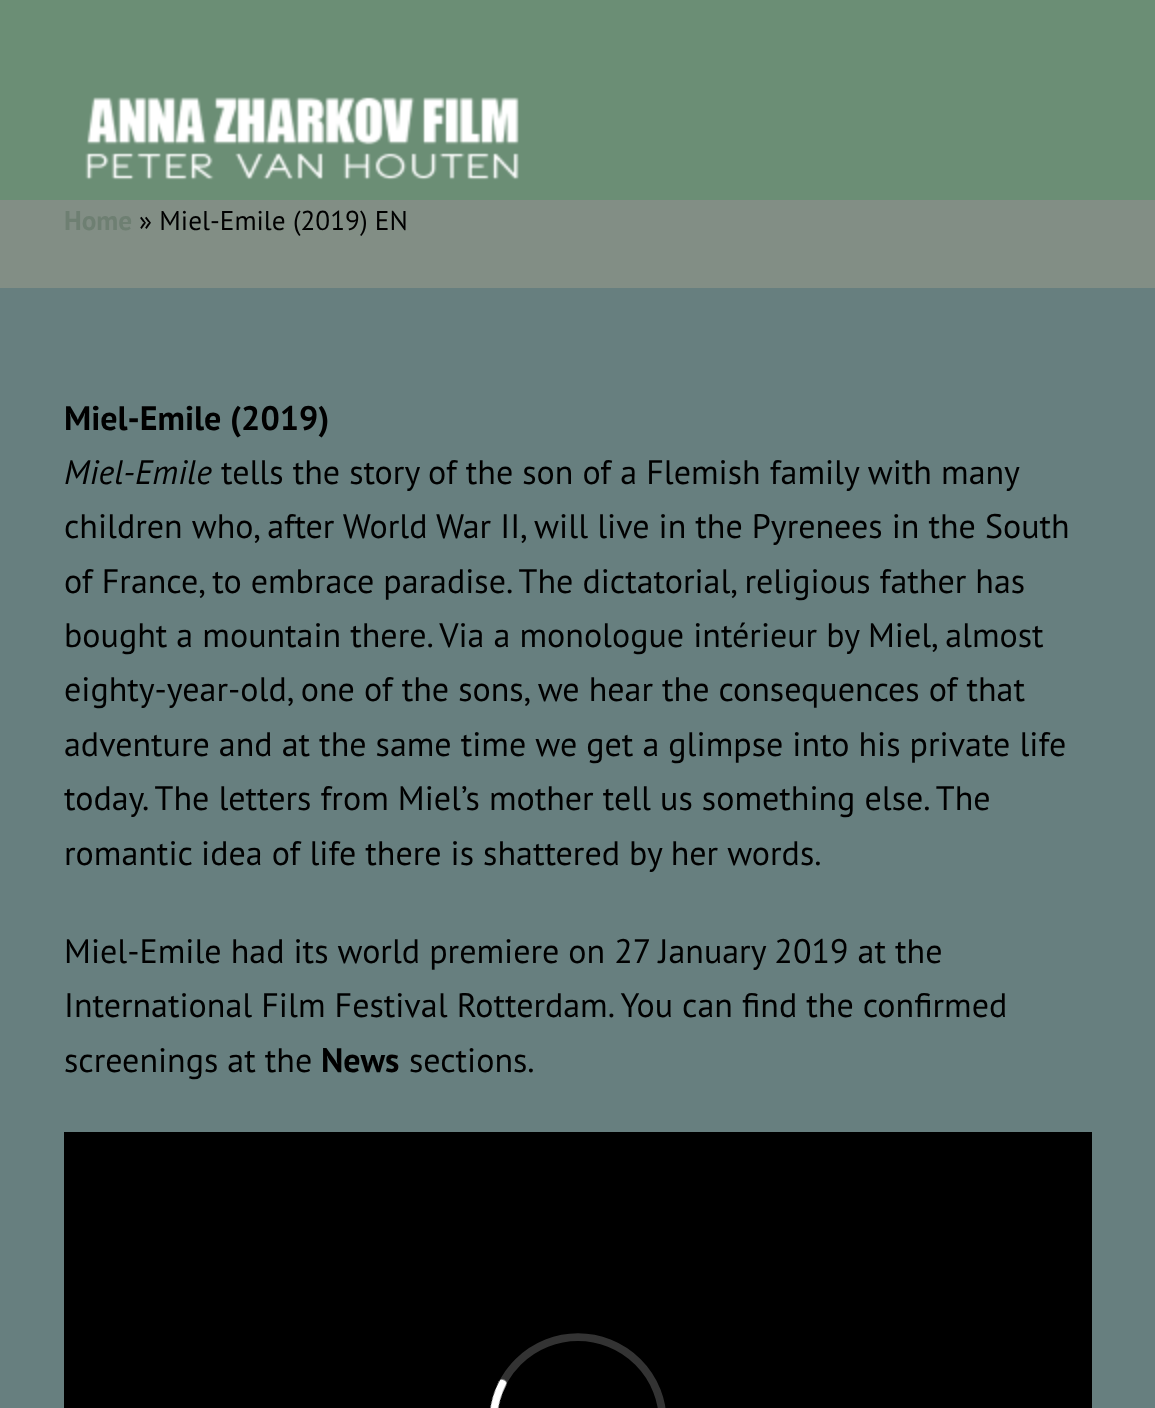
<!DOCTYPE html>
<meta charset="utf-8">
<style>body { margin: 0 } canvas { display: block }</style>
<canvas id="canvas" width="1155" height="1408"></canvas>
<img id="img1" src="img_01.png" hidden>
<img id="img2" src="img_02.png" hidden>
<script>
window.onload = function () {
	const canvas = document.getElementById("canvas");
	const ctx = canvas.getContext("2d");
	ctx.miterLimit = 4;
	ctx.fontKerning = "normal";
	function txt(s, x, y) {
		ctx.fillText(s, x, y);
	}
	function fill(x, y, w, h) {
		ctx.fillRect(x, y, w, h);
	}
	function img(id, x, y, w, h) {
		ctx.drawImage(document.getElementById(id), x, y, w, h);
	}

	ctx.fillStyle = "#6B8E75";
	fill(0, 0, 1155, 1408);
	ctx.fillStyle = "#828E85";
	fill(0, 200, 1155, 88);
	img("img1", 85, 97, 434, 83);
	ctx.fillStyle = "#677F7F";
	fill(0, 288, 1155, 1120);
	img("img2", 64, 1132, 1028, 276);
	ctx.font = "bold 27.25px PT Sans";
	ctx.fillStyle = "#6E7F72";
	txt("Home", 64, 230);
	ctx.font = "27.25px PT Sans";
	ctx.fillStyle = "#000000";
	txt("» Miel-Emile (2019) EN", 139, 230);
	ctx.font = "bold 34px PT Sans";
	txt("Miel-Emile (2019)", 64, 430);
	ctx.font = "italic 34px PT Sans";
	txt("Miel-Emile", 64, 484);
	ctx.font = "34px PT Sans";
	txt("tells the story of the son of a Flemish family with many", 221, 484);
	txt("children who, after World War II, will live in the Pyrenees in the South", 64, 538);
	txt("of France, to embrace paradise. The dictatorial, religious father has", 64, 593);
	txt("bought a mountain there. Via a monologue intérieur by Miel, almost", 64, 647);
	txt("eighty-year-old, one of the sons, we hear the consequences of that", 64, 701);
	txt("adventure and at the same time we get a glimpse into his private life", 64, 756);
	txt("today. The letters from Miel’s mother tell us something else. The", 64, 810);
	txt("romantic idea of life there is shattered by her words.", 64, 865);
	txt("Miel-Emile had its world premiere on 27 January 2019 at the", 64, 963);
	txt("International Film Festival Rotterdam. You can find the confirmed", 64, 1017);
	txt("screenings at the", 64, 1072);
	ctx.font = "bold 34px PT Sans";
	txt("News", 321, 1072);
	ctx.font = "34px PT Sans";
	txt("sections.", 409, 1072);
};
</script>
